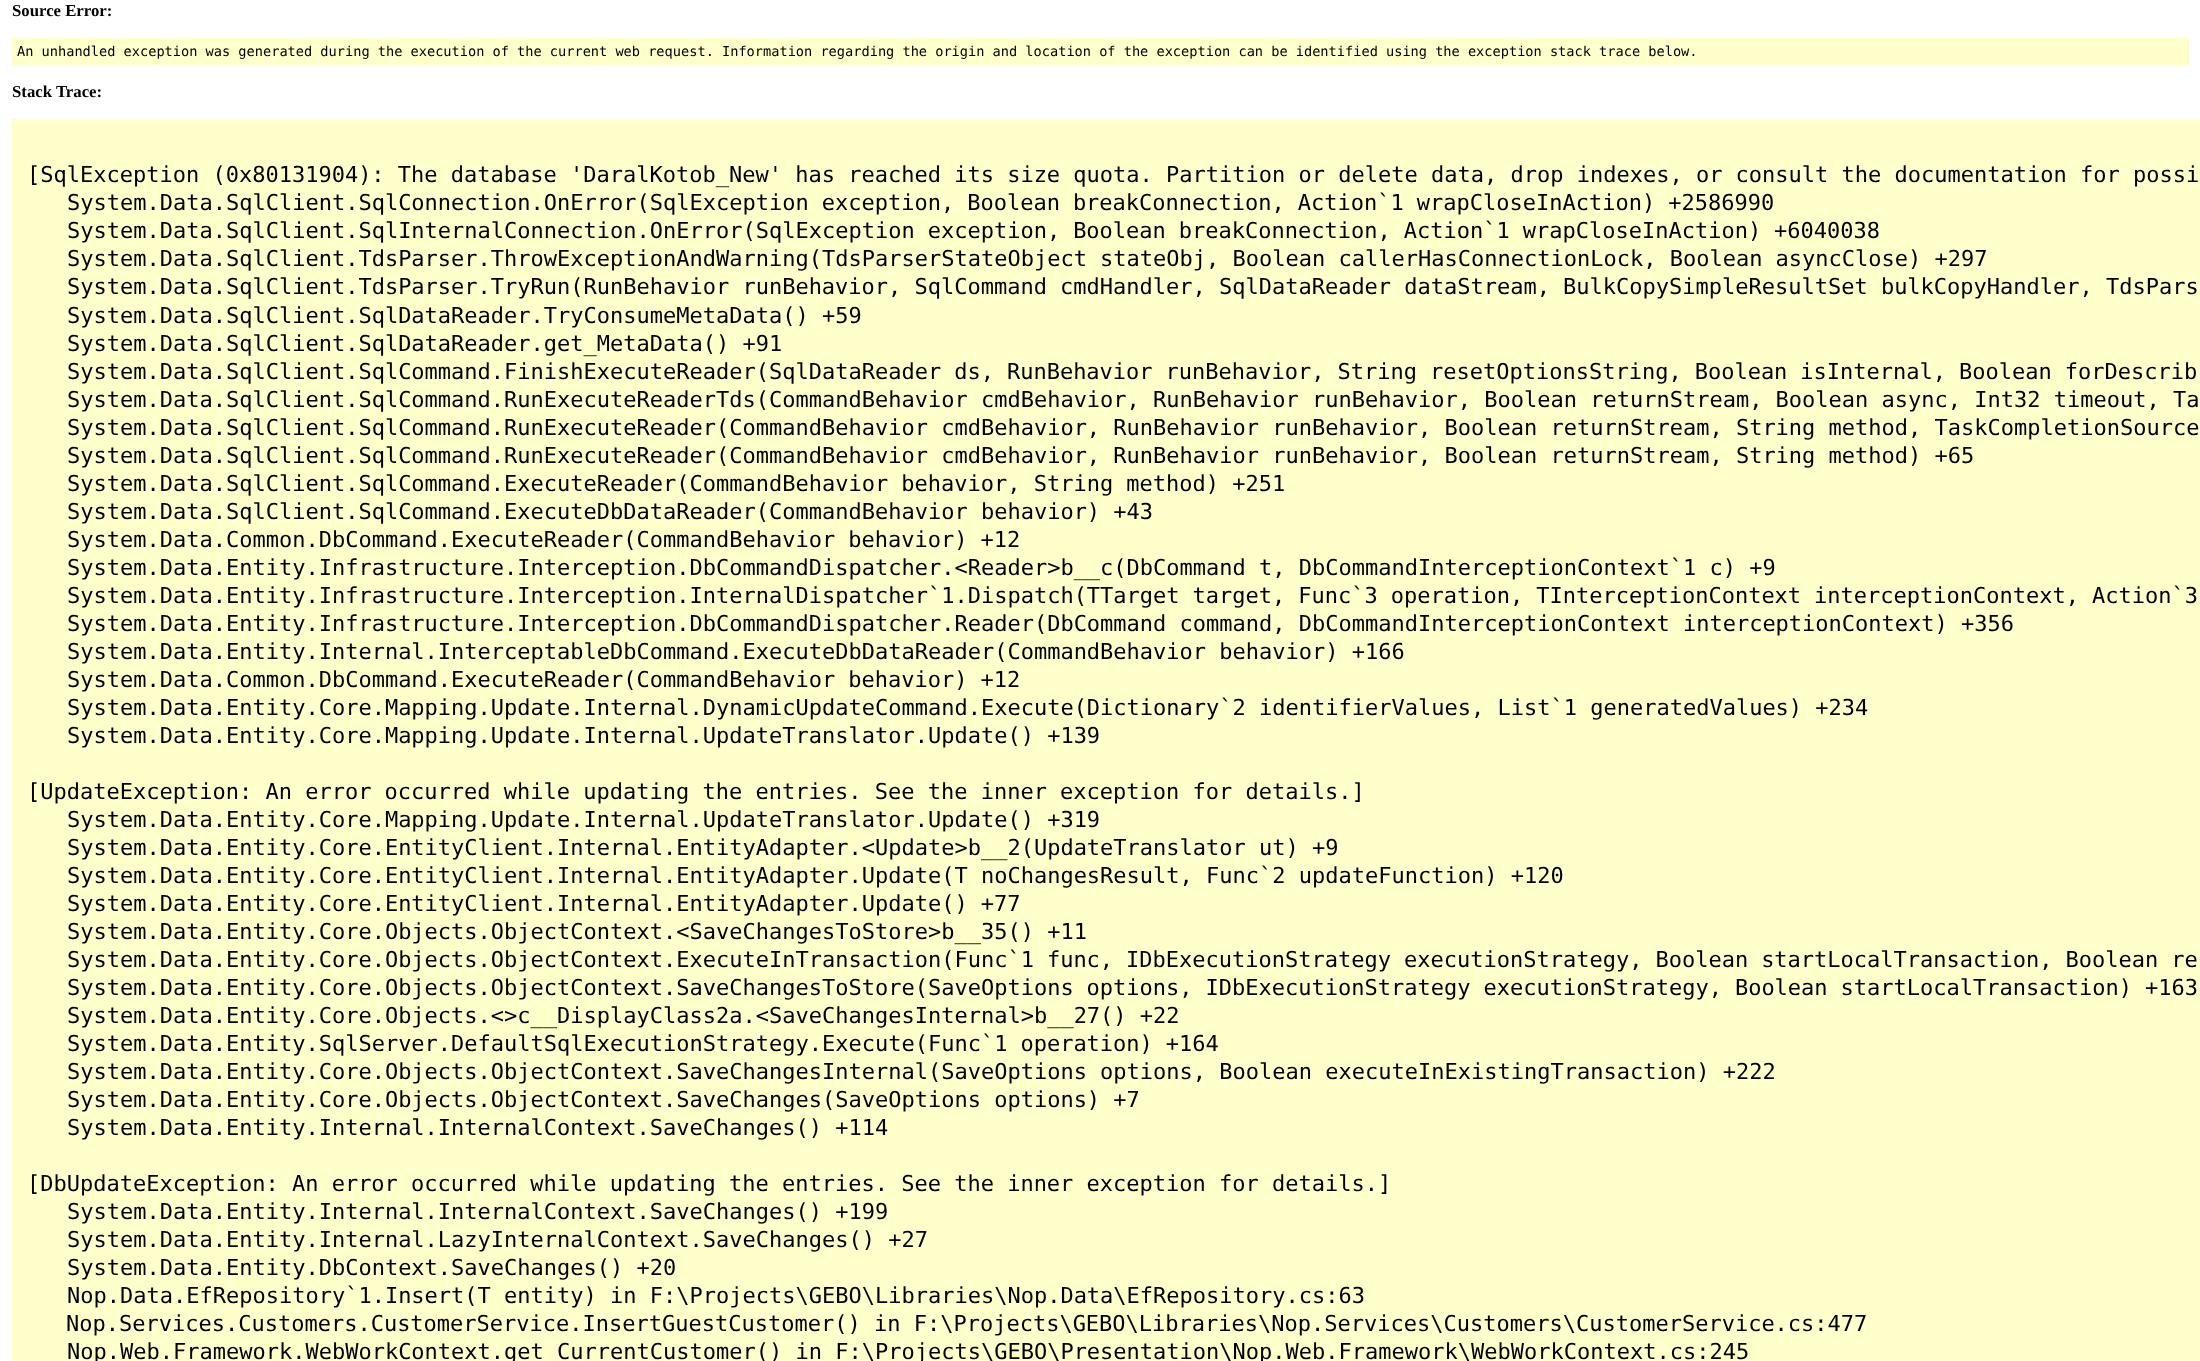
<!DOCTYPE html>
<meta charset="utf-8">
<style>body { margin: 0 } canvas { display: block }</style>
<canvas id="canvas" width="2200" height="1361"></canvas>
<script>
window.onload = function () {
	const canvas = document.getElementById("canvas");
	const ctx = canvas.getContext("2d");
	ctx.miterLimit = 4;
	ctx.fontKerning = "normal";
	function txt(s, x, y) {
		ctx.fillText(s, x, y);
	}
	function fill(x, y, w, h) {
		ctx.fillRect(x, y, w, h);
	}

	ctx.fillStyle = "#FFFFFF";
	fill(0, 0, 2200, 1361);
	ctx.fillStyle = "#FFFFCC";
	fill(12, 38, 2177, 27);
	fill(12, 119, 2188, 1242);
	ctx.font = "bold 16.75px Liberation Serif";
	ctx.fillStyle = "#000000";
	txt("Source Error:", 12, 16);
	ctx.wordSpacing = "-0.1px";
	ctx.font = "13.65px DejaVu Sans Mono";
	txt("An unhandled exception was generated during the execution of the current web request. Information regarding the origin and location of the exception can be identified using the exception stack trace below.", 17, 56);
	ctx.wordSpacing = "0px";
	ctx.font = "bold 16.75px Liberation Serif";
	txt("Stack Trace:", 12, 97);
	ctx.font = "22px DejaVu Sans Mono";
	txt("[SqlException (0x80131904): The database 'DaralKotob_New' has reached its size quota. Partition or delete data, drop indexes, or consult the documentation for possi", 27, 182);
	ctx.wordSpacing = "-0.25px";
	txt("System.Data.SqlClient.SqlConnection.OnError(SqlException exception, Boolean breakConnection, Action`1 wrapCloseInAction) +2586990", 67, 210);
	txt("System.Data.SqlClient.SqlInternalConnection.OnError(SqlException exception, Boolean breakConnection, Action`1 wrapCloseInAction) +6040038", 67, 238);
	ctx.wordSpacing = "0px";
	txt("System.Data.SqlClient.TdsParser.ThrowExceptionAndWarning(TdsParserStateObject stateObj, Boolean callerHasConnectionLock, Boolean asyncClose) +297", 67, 266);
	ctx.wordSpacing = "-0.1px";
	txt("System.Data.SqlClient.TdsParser.TryRun(RunBehavior runBehavior, SqlCommand cmdHandler, SqlDataReader dataStream, BulkCopySimpleResultSet bulkCopyHandler, TdsPars", 67, 294);
	ctx.wordSpacing = "0px";
	txt("System.Data.SqlClient.SqlDataReader.TryConsumeMetaData() +59", 67, 323);
	ctx.wordSpacing = "-0.1px";
	txt("System.Data.SqlClient.SqlDataReader.get_MetaData() +91", 67, 351);
	ctx.wordSpacing = "-0.25px";
	txt("System.Data.SqlClient.SqlCommand.FinishExecuteReader(SqlDataReader ds, RunBehavior runBehavior, String resetOptionsString, Boolean isInternal, Boolean forDescrib", 67, 379);
	ctx.wordSpacing = "0px";
	txt("System.Data.SqlClient.SqlCommand.RunExecuteReaderTds(CommandBehavior cmdBehavior, RunBehavior runBehavior, Boolean returnStream, Boolean async, Int32 timeout, Ta", 67, 407);
	txt("System.Data.SqlClient.SqlCommand.RunExecuteReader(CommandBehavior cmdBehavior, RunBehavior runBehavior, Boolean returnStream, String method, TaskCompletionSource", 67, 435);
	txt("System.Data.SqlClient.SqlCommand.RunExecuteReader(CommandBehavior cmdBehavior, RunBehavior runBehavior, Boolean returnStream, String method) +65", 67, 463);
	ctx.wordSpacing = "-0.1px";
	txt("System.Data.SqlClient.SqlCommand.ExecuteReader(CommandBehavior behavior, String method) +251", 67, 491);
	ctx.wordSpacing = "0px";
	txt("System.Data.SqlClient.SqlCommand.ExecuteDbDataReader(CommandBehavior behavior) +43", 67, 519);
	ctx.wordSpacing = "-0.25px";
	txt("System.Data.Common.DbCommand.ExecuteReader(CommandBehavior behavior) +12", 67, 547);
	ctx.wordSpacing = "0px";
	txt("System.Data.Entity.Infrastructure.Interception.DbCommandDispatcher.<Reader>b__c(DbCommand t, DbCommandInterceptionContext`1 c) +9", 67, 575);
	ctx.wordSpacing = "-0.25px";
	txt("System.Data.Entity.Infrastructure.Interception.InternalDispatcher`1.Dispatch(TTarget target, Func`3 operation, TInterceptionContext interceptionContext, Action`3", 67, 603);
	ctx.wordSpacing = "0px";
	txt("System.Data.Entity.Infrastructure.Interception.DbCommandDispatcher.Reader(DbCommand command, DbCommandInterceptionContext interceptionContext) +356", 67, 631);
	txt("System.Data.Entity.Internal.InterceptableDbCommand.ExecuteDbDataReader(CommandBehavior behavior) +166", 67, 659);
	ctx.wordSpacing = "-0.25px";
	txt("System.Data.Common.DbCommand.ExecuteReader(CommandBehavior behavior) +12", 67, 687);
	ctx.wordSpacing = "0px";
	txt("System.Data.Entity.Core.Mapping.Update.Internal.DynamicUpdateCommand.Execute(Dictionary`2 identifierValues, List`1 generatedValues) +234", 67, 715);
	txt("System.Data.Entity.Core.Mapping.Update.Internal.UpdateTranslator.Update() +139", 67, 743);
	txt("[UpdateException: An error occurred while updating the entries. See the inner exception for details.]", 27, 799);
	txt("System.Data.Entity.Core.Mapping.Update.Internal.UpdateTranslator.Update() +319", 67, 827);
	txt("System.Data.Entity.Core.EntityClient.Internal.EntityAdapter.<Update>b__2(UpdateTranslator ut) +9", 67, 855);
	txt("System.Data.Entity.Core.EntityClient.Internal.EntityAdapter.Update(T noChangesResult, Func`2 updateFunction) +120", 67, 883);
	ctx.wordSpacing = "-0.25px";
	txt("System.Data.Entity.Core.EntityClient.Internal.EntityAdapter.Update() +77", 67, 911);
	ctx.wordSpacing = "0px";
	txt("System.Data.Entity.Core.Objects.ObjectContext.<SaveChangesToStore>b__35() +11", 67, 939);
	ctx.wordSpacing = "-0.25px";
	txt("System.Data.Entity.Core.Objects.ObjectContext.ExecuteInTransaction(Func`1 func, IDbExecutionStrategy executionStrategy, Boolean startLocalTransaction, Boolean re", 67, 967);
	txt("System.Data.Entity.Core.Objects.ObjectContext.SaveChangesToStore(SaveOptions options, IDbExecutionStrategy executionStrategy, Boolean startLocalTransaction) +163", 67, 995);
	ctx.wordSpacing = "0px";
	txt("System.Data.Entity.Core.Objects.<>c__DisplayClass2a.<SaveChangesInternal>b__27() +22", 67, 1023);
	ctx.wordSpacing = "-0.25px";
	txt("System.Data.Entity.SqlServer.DefaultSqlExecutionStrategy.Execute(Func`1 operation) +164", 67, 1051);
	ctx.wordSpacing = "0px";
	txt("System.Data.Entity.Core.Objects.ObjectContext.SaveChangesInternal(SaveOptions options, Boolean executeInExistingTransaction) +222", 67, 1079);
	txt("System.Data.Entity.Core.Objects.ObjectContext.SaveChanges(SaveOptions options) +7", 67, 1107);
	txt("System.Data.Entity.Internal.InternalContext.SaveChanges() +114", 67, 1135);
	txt("[DbUpdateException: An error occurred while updating the entries. See the inner exception for details.]", 27, 1191);
	txt("System.Data.Entity.Internal.InternalContext.SaveChanges() +199", 67, 1219);
	txt("System.Data.Entity.Internal.LazyInternalContext.SaveChanges() +27", 67, 1247);
	txt("System.Data.Entity.DbContext.SaveChanges() +20", 67, 1275);
	txt("Nop.Data.EfRepository`1.Insert(T entity) in F:\\Projects\\GEBO\\Libraries\\Nop.Data\\EfRepository.cs:63", 67, 1303);
	txt("Nop.Services.Customers.CustomerService.InsertGuestCustomer() in F:\\Projects\\GEBO\\Libraries\\Nop.Services\\Customers\\CustomerService.cs:477", 66, 1331);
	txt("Nop.Web.Framework.WebWorkContext.get_CurrentCustomer() in F:\\Projects\\GEBO\\Presentation\\Nop.Web.Framework\\WebWorkContext.cs:245", 67, 1359);
};
</script>
